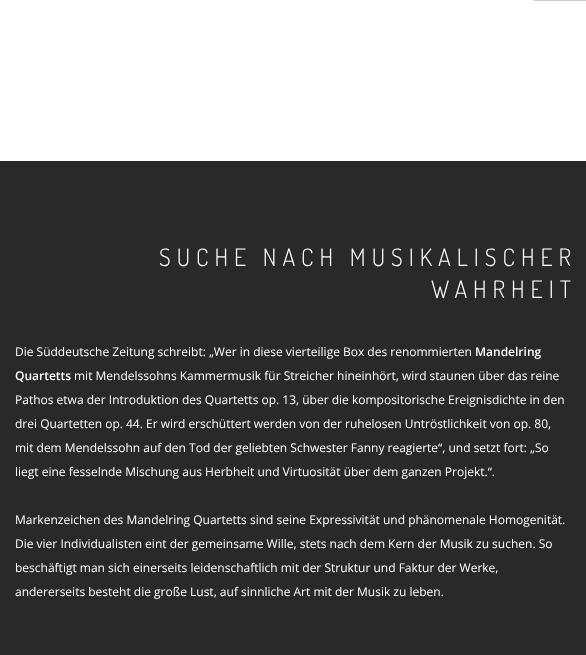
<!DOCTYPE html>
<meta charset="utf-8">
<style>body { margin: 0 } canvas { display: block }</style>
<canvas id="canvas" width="586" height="655"></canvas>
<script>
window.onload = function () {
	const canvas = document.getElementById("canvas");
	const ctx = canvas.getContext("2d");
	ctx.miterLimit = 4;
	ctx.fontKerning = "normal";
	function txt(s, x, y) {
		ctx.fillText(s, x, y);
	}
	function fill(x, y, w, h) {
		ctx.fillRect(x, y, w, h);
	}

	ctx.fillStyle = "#FFFFFF";
	fill(0, 0, 586, 655);
	ctx.fillStyle = "#CCCCCC";
	ctx.beginPath();
	ctx.moveTo(533, 0);
	ctx.lineTo(586, 0);
	ctx.lineTo(586, 1);
	ctx.lineTo(534, 1);
	ctx.closePath();
	ctx.fill();
	ctx.fillStyle = "#292929";
	fill(0, 161, 586, 494);
	ctx.letterSpacing = "6px";
	ctx.font = "300 24px Dosis";
	ctx.fillStyle = "#FFFFFF";
	txt("SUCHE NACH MUSIKALISCHER", 159, 266);
	txt("WAHRHEIT", 431, 298);
	ctx.letterSpacing = "0px";
	ctx.font = "12px Open Sans";
	txt("Die Süddeutsche Zeitung schreibt: „Wer in diese vierteilige Box des renommierten", 15, 356);
	ctx.font = "600 12px Open Sans";
	txt("Mandelring", 475, 356);
	txt("Quartetts", 15, 380);
	ctx.font = "12px Open Sans";
	txt("mit Mendelssohns Kammermusik für Streicher hineinhört, wird staunen über das reine", 74, 380);
	txt("Pathos etwa der Introduktion des Quartetts op. 13, über die kompositorische Ereignisdichte in den", 15, 404);
	txt("drei Quartetten op. 44. Er wird erschüttert werden von der ruhelosen Untröstlichkeit von op. 80,", 15, 428);
	txt("mit dem Mendelssohn auf den Tod der geliebten Schwester Fanny reagierte“, und setzt fort: „So", 15, 452);
	txt("liegt eine fesselnde Mischung aus Herbheit und Virtuosität über dem ganzen Projekt.“.", 15, 476);
	txt("Markenzeichen des Mandelring Quartetts sind seine Expressivität und phänomenale Homogenität.", 15, 524);
	txt("Die vier Individualisten eint der gemeinsame Wille, stets nach dem Kern der Musik zu suchen. So", 15, 548);
	txt("beschäftigt man sich einerseits leidenschaftlich mit der Struktur und Faktur der Werke,", 15, 572);
	txt("andererseits besteht die große Lust, auf sinnliche Art mit der Musik zu leben.", 15, 596);
};
</script>
